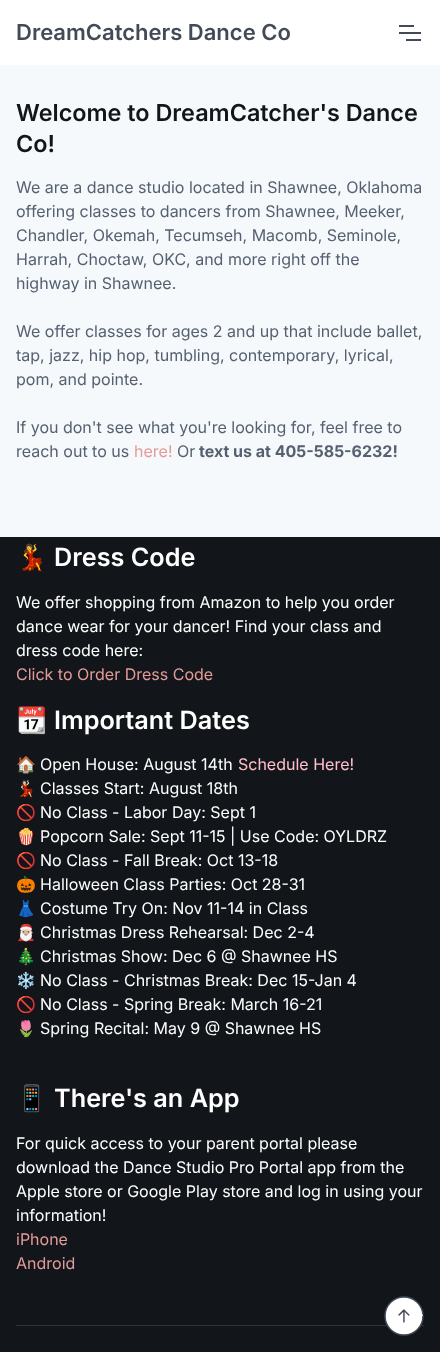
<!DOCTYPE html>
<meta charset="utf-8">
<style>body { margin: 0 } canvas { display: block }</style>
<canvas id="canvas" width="440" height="1352"></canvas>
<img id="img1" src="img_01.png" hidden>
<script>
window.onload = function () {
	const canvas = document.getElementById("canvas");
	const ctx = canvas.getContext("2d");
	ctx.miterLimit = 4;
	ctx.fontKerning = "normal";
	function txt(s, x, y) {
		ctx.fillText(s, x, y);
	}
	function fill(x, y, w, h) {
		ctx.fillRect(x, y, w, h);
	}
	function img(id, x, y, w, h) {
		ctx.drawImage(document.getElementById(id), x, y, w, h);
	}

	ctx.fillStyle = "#F6F9FC";
	fill(0, 0, 440, 1352);
	ctx.fillStyle = "#FFFFFF";
	fill(0, 0, 440, 65);
	ctx.fillStyle = "#434A57";
	fill(399, 32, 22, 2);
	fill(399, 25, 15, 2);
	fill(406, 39, 15, 2);
	ctx.fillStyle = "#121519";
	fill(0, 537, 440, 815);
	ctx.fillStyle = "#313337";
	fill(16, 1325, 408, 1);
	ctx.fillStyle = "#FFFFFF";
	ctx.beginPath();
	ctx.arc(404, 1316, 19, 0, Math.PI * 2);
	ctx.fill();
	img("img1", 398, 1309, 12, 14);
	ctx.beginPath();
	ctx.moveTo(423, 1316);
	ctx.bezierCurveTo(423, 1326.5, 414.5, 1335, 404, 1335);
	ctx.bezierCurveTo(393.5, 1335, 385, 1326.5, 385, 1316);
	ctx.bezierCurveTo(385, 1305.5, 393.5, 1297, 404, 1297);
	ctx.bezierCurveTo(414, 1297, 422, 1304.5, 423, 1314.5);
	ctx.strokeStyle = "#434A57";
	ctx.lineWidth = 1.5;
	ctx.stroke();
	ctx.font = "600 22px Inter";
	ctx.fillStyle = "#434A57";
	txt("DreamCatchers Dance Co", 16, 40);
	ctx.font = "600 23.4px Inter";
	ctx.fillStyle = "#121519";
	txt("Welcome to DreamCatcher's Dance", 16, 121);
	txt("Co!", 16, 152);
	ctx.font = "16px Inter";
	ctx.fillStyle = "#576071";
	txt("We are a dance studio located in Shawnee, Oklahoma", 16, 193);
	txt("offering classes to dancers from Shawnee, Meeker,", 16, 217);
	txt("Chandler, Okemah, Tecumseh, Macomb, Seminole,", 16, 241);
	txt("Harrah, Choctaw, OKC, and more right off the", 16, 265);
	txt("highway in Shawnee.", 16, 289);
	txt("We offer classes for ages 2 and up that include ballet,", 16, 337);
	txt("tap, jazz, hip hop, tumbling, contemporary, lyrical,", 16, 361);
	txt("pom, and pointe.", 16, 385);
	txt("If you don't see what you're looking for, feel free to", 16, 433);
	txt("reach out to us", 16, 457);
	ctx.fillStyle = "#E49B99";
	txt("here!", 134, 457);
	ctx.fillStyle = "#576071";
	txt("Or", 177, 457);
	ctx.font = "bold 16px Inter";
	txt("text us at 405-585-6232!", 199, 457);
	ctx.font = "bold 25.25px Noto Color Emoji";
	ctx.fillStyle = "#FFFFFF";
	txt("💃", 16, 566);
	ctx.font = "600 25.25px Inter";
	txt("Dress Code", 54, 566);
	ctx.font = "16px Inter";
	txt("We offer shopping from Amazon to help you order", 16, 608);
	txt("dance wear for your dancer! Find your class and", 16, 632);
	txt("dress code here:", 16, 656);
	ctx.fillStyle = "#E49B99";
	txt("Click to Order Dress Code", 16, 680);
	ctx.font = "bold 25.25px Noto Color Emoji";
	ctx.fillStyle = "#FFFFFF";
	txt("📆", 16, 729);
	ctx.font = "600 25.25px Inter";
	txt("Important Dates", 54, 729);
	ctx.font = "16px Noto Color Emoji";
	txt("🏠", 16, 770);
	ctx.font = "16px Inter";
	txt("Open House: August 14th", 40, 770);
	ctx.fillStyle = "#FFC0CB";
	txt("Schedule Here!", 238, 770);
	ctx.font = "16px Noto Color Emoji";
	ctx.fillStyle = "#FFFFFF";
	txt("💃🏻", 16, 794);
	ctx.font = "16px Inter";
	txt("Classes Start: August 18th", 40, 794);
	ctx.font = "16px Noto Color Emoji";
	txt("🚫", 16, 818);
	ctx.font = "16px Inter";
	txt("No Class - Labor Day: Sept 1", 40, 818);
	ctx.font = "16px Noto Color Emoji";
	txt("🍿", 16, 842);
	ctx.font = "16px Inter";
	txt("Popcorn Sale: Sept 11-15 | Use Code: OYLDRZ", 40, 842);
	ctx.font = "16px Noto Color Emoji";
	txt("🚫", 16, 866);
	ctx.font = "16px Inter";
	txt("No Class - Fall Break: Oct 13-18", 40, 866);
	ctx.font = "16px Noto Color Emoji";
	txt("🎃", 16, 890);
	ctx.font = "16px Inter";
	txt("Halloween Class Parties: Oct 28-31", 40, 890);
	ctx.font = "16px Noto Color Emoji";
	txt("👗", 16, 914);
	ctx.font = "16px Inter";
	txt("Costume Try On: Nov 11-14 in Class", 40, 914);
	ctx.font = "16px Noto Color Emoji";
	txt("🎅🏼", 16, 938);
	ctx.font = "16px Inter";
	txt("Christmas Dress Rehearsal: Dec 2-4", 40, 938);
	ctx.font = "16px Noto Color Emoji";
	txt("🎄", 16, 962);
	ctx.font = "16px Inter";
	txt("Christmas Show: Dec 6 @ Shawnee HS", 40, 962);
	ctx.font = "16px Noto Color Emoji";
	txt("❄️", 16, 986);
	ctx.font = "16px Inter";
	txt("No Class - Christmas Break: Dec 15-Jan 4", 40, 986);
	ctx.font = "16px Noto Color Emoji";
	txt("🚫", 16, 1010);
	ctx.font = "16px Inter";
	txt("No Class - Spring Break: March 16-21", 40, 1010);
	ctx.font = "16px Noto Color Emoji";
	txt("🌷", 16, 1034);
	ctx.font = "16px Inter";
	txt("Spring Recital: May 9 @ Shawnee HS", 40, 1034);
	ctx.font = "bold 25.25px Noto Color Emoji";
	txt("📱", 16, 1107);
	ctx.font = "600 25.25px Inter";
	txt("There's an App", 54, 1107);
	ctx.font = "16px Inter";
	txt("For quick access to your parent portal please", 16, 1149);
	txt("download the Dance Studio Pro Portal app from the", 16, 1173);
	txt("Apple store or Google Play store and log in using your", 16, 1197);
	txt("information!", 16, 1221);
	ctx.fillStyle = "#E49B99";
	txt("iPhone", 16, 1245);
	txt("Android", 16, 1269);
};
</script>
